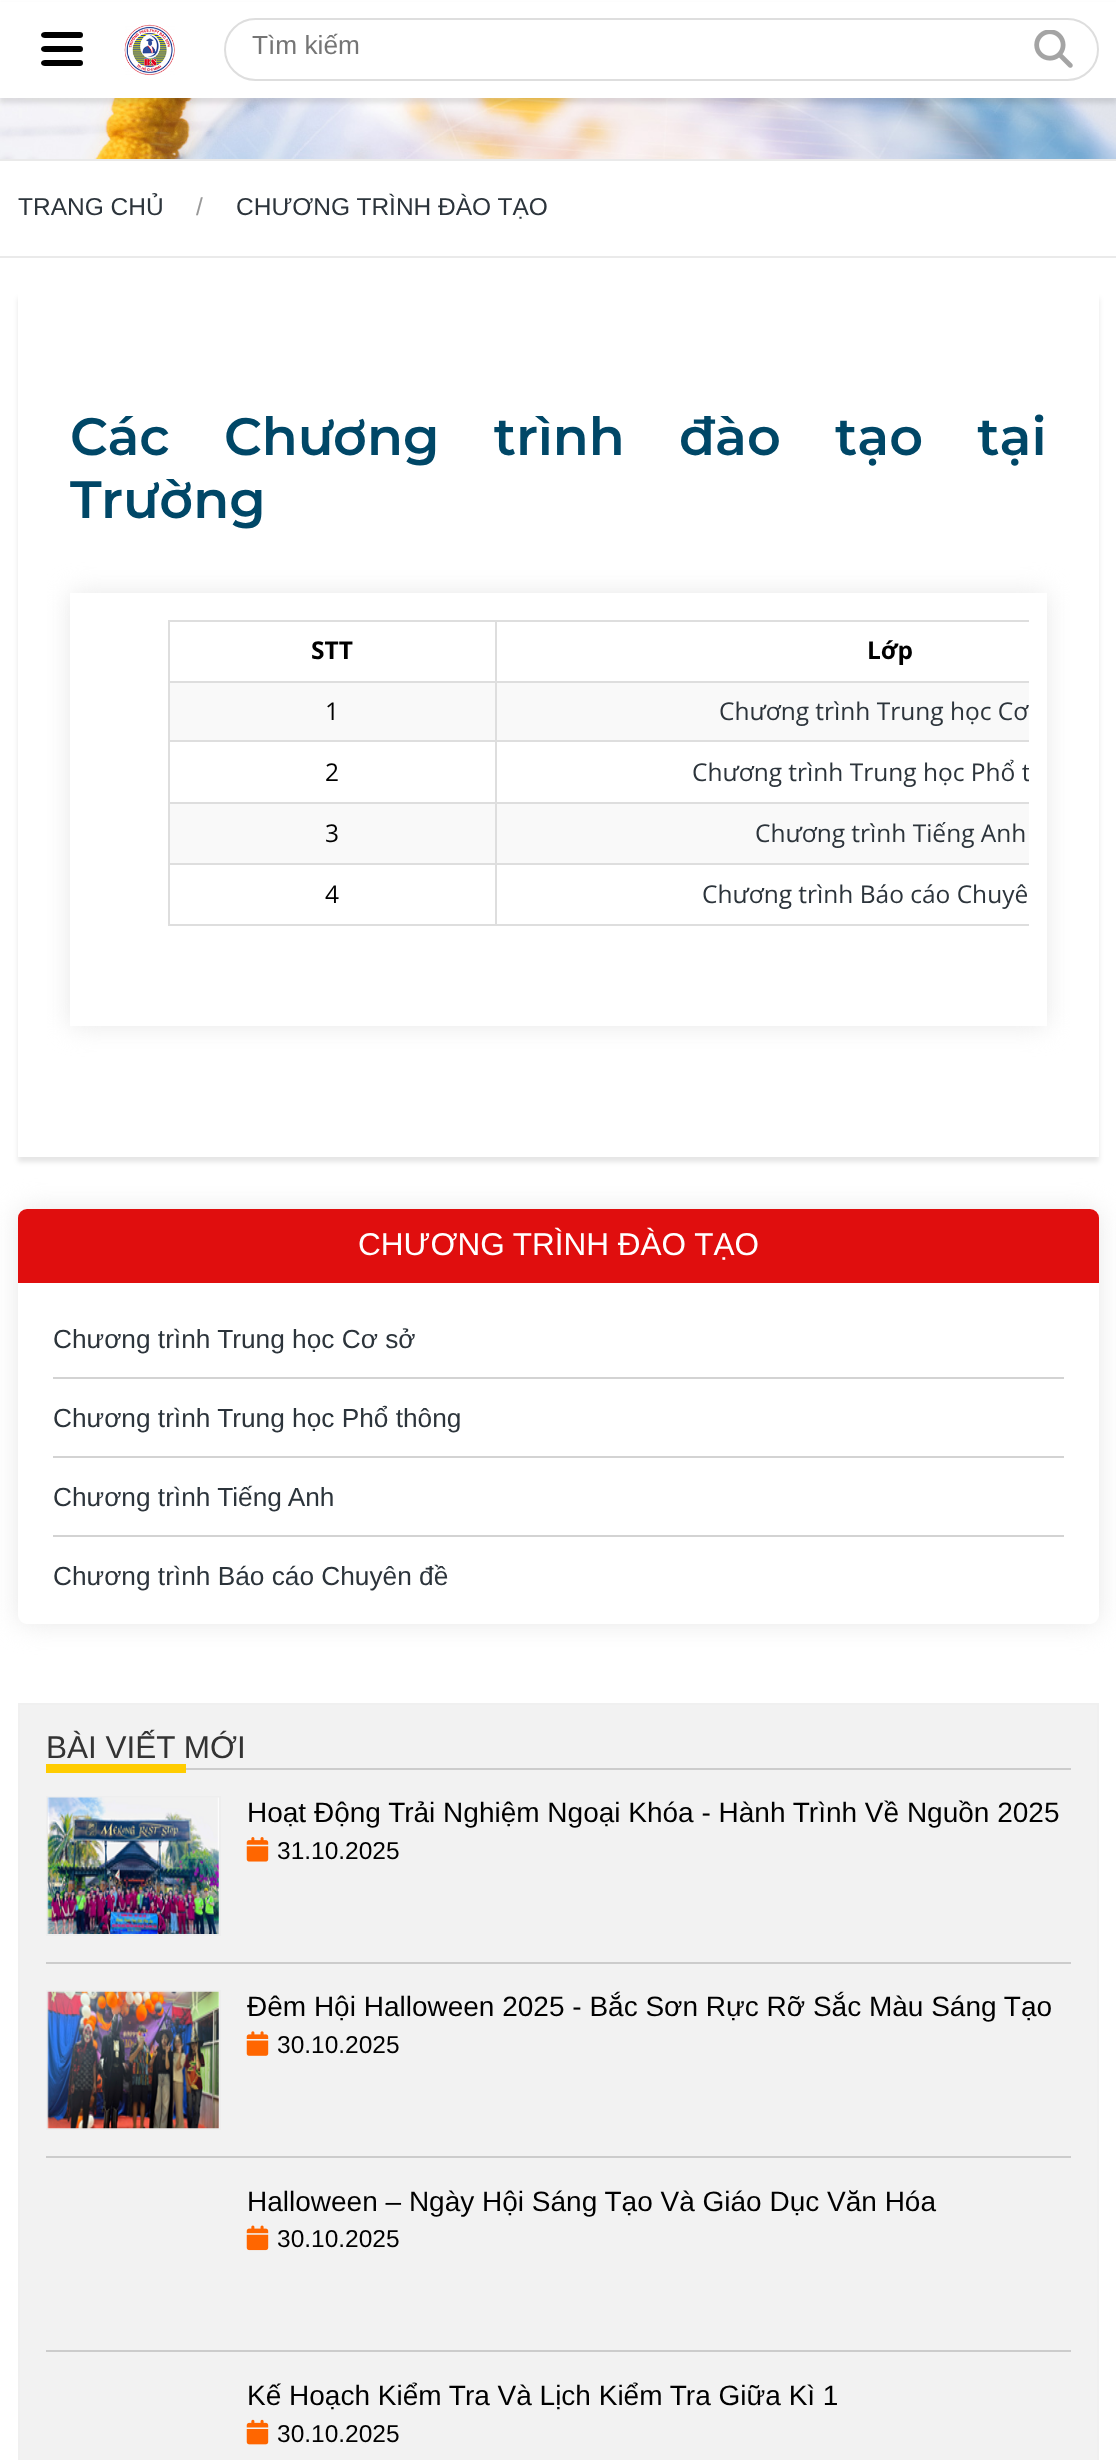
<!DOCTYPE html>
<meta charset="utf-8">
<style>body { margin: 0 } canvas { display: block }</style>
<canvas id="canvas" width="1116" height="2460"></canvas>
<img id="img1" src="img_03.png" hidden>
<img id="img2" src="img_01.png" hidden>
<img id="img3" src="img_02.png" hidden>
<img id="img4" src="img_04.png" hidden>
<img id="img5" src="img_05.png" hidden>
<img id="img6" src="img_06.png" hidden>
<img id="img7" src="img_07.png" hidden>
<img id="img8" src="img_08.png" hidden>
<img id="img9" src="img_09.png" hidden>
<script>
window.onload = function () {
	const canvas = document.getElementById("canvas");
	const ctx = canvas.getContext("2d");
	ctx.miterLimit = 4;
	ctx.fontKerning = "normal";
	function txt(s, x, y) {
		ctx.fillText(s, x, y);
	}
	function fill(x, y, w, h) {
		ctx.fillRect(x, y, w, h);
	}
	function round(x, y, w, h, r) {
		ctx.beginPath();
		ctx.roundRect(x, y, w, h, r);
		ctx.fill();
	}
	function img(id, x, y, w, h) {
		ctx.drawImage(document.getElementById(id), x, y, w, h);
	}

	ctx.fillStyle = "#FFFFFF";
	fill(0, 0, 1116, 2460);
	img("img1", 0, 98, 1116, 61);
	ctx.fillStyle = "rgba(0, 0, 0, 0.1)";
	ctx.filter = "blur(2.5px)";
	ctx.beginPath();
	ctx.rect(0, 5, 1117, 98);
	ctx.fill();
	ctx.filter = "none";
	ctx.fillStyle = "#FFFFFF";
	fill(0, 2, 1116, 96);
	ctx.fillStyle = "#000000";
	ctx.beginPath();
	ctx.moveTo(80, 52);
	ctx.lineTo(45, 52);
	ctx.bezierCurveTo(43, 52, 41, 51, 41, 49);
	ctx.bezierCurveTo(41, 47, 43, 46, 45, 46);
	ctx.lineTo(80, 46);
	ctx.bezierCurveTo(82, 46, 83, 47, 83, 49);
	ctx.bezierCurveTo(83, 51, 82, 52, 80, 52);
	ctx.closePath();
	ctx.moveTo(80, 66);
	ctx.lineTo(45, 66);
	ctx.bezierCurveTo(43, 66, 41, 65, 41, 63);
	ctx.bezierCurveTo(41, 61, 43, 60, 45, 60);
	ctx.lineTo(80, 60);
	ctx.bezierCurveTo(82, 60, 83, 61, 83, 63);
	ctx.bezierCurveTo(83, 65, 82, 66, 80, 66);
	ctx.closePath();
	ctx.moveTo(80, 38);
	ctx.lineTo(45, 38);
	ctx.bezierCurveTo(43, 38, 41, 37, 41, 35);
	ctx.bezierCurveTo(41, 33, 43, 32, 45, 32);
	ctx.lineTo(80, 32);
	ctx.bezierCurveTo(82, 32, 83, 33, 83, 35);
	ctx.bezierCurveTo(83, 37, 82, 38, 80, 38);
	ctx.closePath();
	ctx.fill();
	img("img2", 124, 24, 51, 52);
	ctx.beginPath();
	ctx.roundRect(225, 19, 873, 61, 30.5);
	ctx.strokeStyle = "#DEDEDE";
	ctx.lineWidth = 2;
	ctx.stroke();
	img("img3", 1034, 30, 39, 38);
	ctx.fillStyle = "#EAEAEA";
	fill(0, 159, 1116, 2);
	fill(0, 256, 1116, 2);
	ctx.save();
	ctx.beginPath();
	ctx.moveTo(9, 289);
	ctx.lineTo(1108, 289);
	ctx.lineTo(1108, 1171);
	ctx.lineTo(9, 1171);
	ctx.closePath();
	ctx.moveTo(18, 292);
	ctx.lineTo(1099, 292);
	ctx.lineTo(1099, 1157);
	ctx.lineTo(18, 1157);
	ctx.closePath();
	ctx.clip("evenodd");
	ctx.fillStyle = "rgba(0, 0, 0, 0.1)";
	ctx.filter = "blur(2.5px)";
	ctx.beginPath();
	ctx.rect(18, 298, 1081, 864);
	ctx.fill();
	ctx.filter = "none";
	ctx.restore();
	ctx.fillStyle = "#E8E8E8";
	ctx.filter = "blur(13px)";
	ctx.beginPath();
	ctx.rect(70, 593, 977, 433);
	ctx.fill();
	ctx.filter = "none";
	ctx.fillStyle = "#FFFFFF";
	fill(70, 593, 977, 433);
	ctx.fillStyle = "#DEDEDE";
	fill(495, 620, 534, 2);
	fill(495, 681, 534, 2);
	ctx.fillStyle = "#F9F9F9";
	fill(170, 683, 859, 57);
	ctx.fillStyle = "#DEDEDE";
	fill(495, 740, 534, 2);
	fill(495, 802, 534, 2);
	ctx.fillStyle = "#F9F9F9";
	fill(170, 804, 859, 59);
	ctx.fillStyle = "#DEDEDE";
	fill(495, 863, 534, 2);
	fill(495, 924, 534, 2);
	fill(495, 863, 2, 63);
	fill(168, 863, 329, 2);
	fill(495, 802, 2, 63);
	fill(168, 802, 329, 2);
	fill(495, 740, 2, 63);
	fill(168, 740, 329, 2);
	fill(495, 681, 2, 61);
	fill(168, 681, 329, 2);
	fill(495, 620, 2, 63);
	fill(168, 620, 329, 2);
	fill(168, 924, 329, 2);
	fill(168, 863, 2, 63);
	fill(168, 802, 2, 63);
	fill(168, 740, 2, 63);
	fill(168, 681, 2, 61);
	fill(168, 620, 2, 63);
	ctx.fillStyle = "#E8E8E8";
	ctx.filter = "blur(13px)";
	ctx.beginPath();
	ctx.roundRect(18, 1209, 1081, 415, 9);
	ctx.fill();
	ctx.filter = "none";
	ctx.fillStyle = "#FFFFFF";
	round(18, 1209, 1081, 415, 9);
	ctx.fillStyle = "#E00E0E";
	ctx.beginPath();
	ctx.roundRect(18, 1209, 1081, 74, [9, 9, 0, 0]);
	ctx.fill();
	ctx.fillStyle = "#D3D3D3";
	fill(53, 1377, 1011, 2);
	fill(53, 1456, 1011, 2);
	fill(53, 1535, 1011, 2);
	ctx.fillStyle = "#F2F2F2";
	ctx.beginPath();
	ctx.rect(19, 1704, 1079, 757);
	ctx.fill();
	ctx.strokeStyle = "#F0F0F0";
	ctx.stroke();
	ctx.fillStyle = "#CCCCCC";
	fill(186, 1768, 885, 2);
	ctx.fillStyle = "#FFCC00";
	fill(46, 1764, 140, 9);
	ctx.fillStyle = "#CCCCCC";
	fill(46, 1962, 1025, 2);
	ctx.strokeStyle = "#EEEEEE";
	ctx.strokeRect(47, 1797, 173, 138);
	img("img4", 47, 1797, 172, 137);
	img("img5", 246, 1837, 23, 25);
	fill(46, 2156, 1025, 2);
	ctx.strokeRect(47, 1991, 173, 138);
	img("img6", 47, 1991, 172, 138);
	img("img7", 246, 2031, 23, 25);
	fill(46, 2350, 1025, 2);
	img("img8", 246, 2225, 23, 26);
	img("img9", 246, 2419, 23, 26);
	ctx.font = "26.25px Liberation Sans";
	ctx.fillStyle = "#757575";
	txt("Tìm kiếm", 252, 54);
	ctx.font = "24.5px Liberation Sans";
	ctx.fillStyle = "#2C343B";
	txt("TRANG CHỦ", 18, 215);
	ctx.fillStyle = "#999999";
	txt("/", 196, 215);
	ctx.fillStyle = "#2C343B";
	txt("CHƯƠNG TRÌNH ĐÀO TẠO", 236, 215);
	ctx.wordSpacing = "39.75px";
	ctx.font = "600 52.5px Montserrat";
	ctx.fillStyle = "#004767";
	txt("Các Chương trình đào tạo tại", 70, 455);
	ctx.wordSpacing = "0px";
	txt("Trường", 70, 518);
	ctx.font = "bold 24.5px Open Sans";
	ctx.fillStyle = "#000000";
	txt("STT", 311, 659);
	txt("Lớp", 867, 659);
	ctx.font = "24.5px Open Sans";
	txt("1", 325, 720);
	ctx.fillStyle = "#2C343B";
	txt("Chương trình Trung học Cơ", 719, 720);
	ctx.fillStyle = "#000000";
	txt("2", 325, 781);
	ctx.save();
	ctx.beginPath();
	ctx.rect(70, 593, 959, 433);
	ctx.clip();
	ctx.fillStyle = "#2C343B";
	txt("Chương trình Trung học Phổ t", 692, 781);
	ctx.restore();
	txt("3", 325, 842);
	ctx.fillStyle = "#2C343B";
	txt("Chương trình Tiếng Anh", 755, 842);
	ctx.fillStyle = "#000000";
	txt("4", 325, 903);
	ctx.fillStyle = "#2C343B";
	txt("Chương trình Báo cáo Chuyê", 702, 903);
	ctx.font = "31.5px Liberation Sans";
	ctx.fillStyle = "#FFFFFF";
	txt("CHƯƠNG TRÌNH ĐÀO TẠO", 358, 1255);
	ctx.font = "26.25px Liberation Sans";
	ctx.fillStyle = "#2C343B";
	txt("Chương trình Trung học Cơ sở", 53, 1348);
	txt("Chương trình Trung học Phổ thông", 53, 1427);
	txt("Chương trình Tiếng Anh", 53, 1506);
	txt("Chương trình Báo cáo Chuyên đề", 53, 1585);
	ctx.font = "31.5px Liberation Sans";
	ctx.fillStyle = "#333333";
	txt("BÀI VIẾT MỚI", 46, 1758);
	ctx.font = "28px Liberation Sans";
	ctx.fillStyle = "#000000";
	txt("Hoạt Động Trải Nghiệm Ngoại Khóa - Hành Trình Về Nguồn 2025", 247, 1822);
	ctx.font = "24.5px Liberation Sans";
	txt("31.10.2025", 277, 1859);
	ctx.font = "28px Liberation Sans";
	txt("Đêm Hội Halloween 2025 - Bắc Sơn Rực Rỡ Sắc Màu Sáng Tạo", 247, 2016);
	ctx.font = "24.5px Liberation Sans";
	txt("30.10.2025", 277, 2053);
	ctx.font = "28px Liberation Sans";
	txt("Halloween – Ngày Hội Sáng Tạo Và Giáo Dục Văn Hóa", 247, 2211);
	ctx.font = "24.5px Liberation Sans";
	txt("30.10.2025", 277, 2247);
	ctx.font = "28px Liberation Sans";
	txt("Kế Hoạch Kiểm Tra Và Lịch Kiểm Tra Giữa Kì 1", 247, 2405);
	ctx.font = "24.5px Liberation Sans";
	txt("30.10.2025", 277, 2442);
};
</script>
